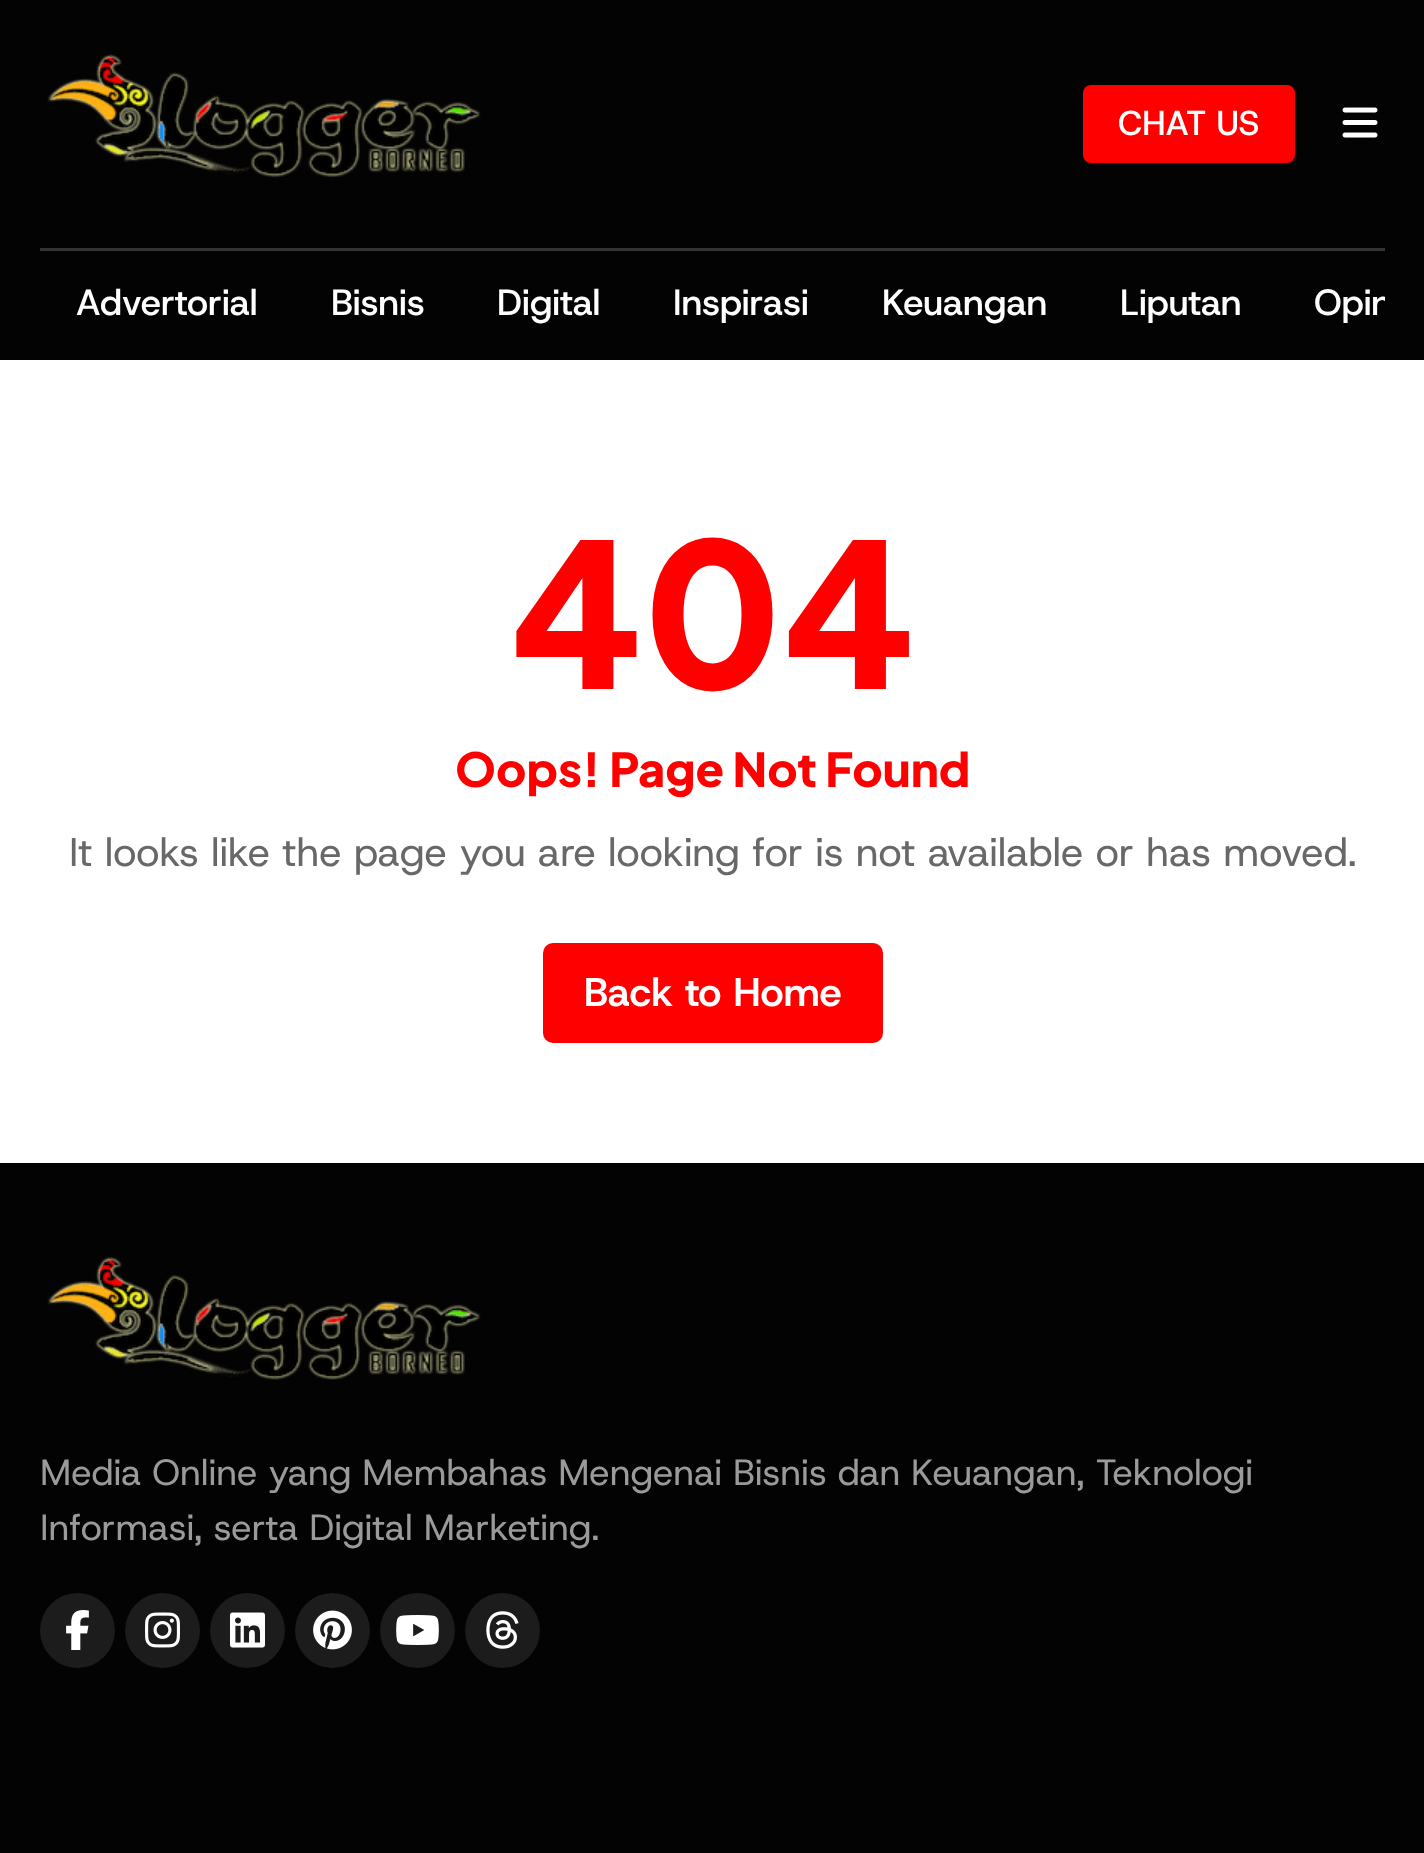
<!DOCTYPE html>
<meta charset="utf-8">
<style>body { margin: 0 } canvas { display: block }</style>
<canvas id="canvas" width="1424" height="1853"></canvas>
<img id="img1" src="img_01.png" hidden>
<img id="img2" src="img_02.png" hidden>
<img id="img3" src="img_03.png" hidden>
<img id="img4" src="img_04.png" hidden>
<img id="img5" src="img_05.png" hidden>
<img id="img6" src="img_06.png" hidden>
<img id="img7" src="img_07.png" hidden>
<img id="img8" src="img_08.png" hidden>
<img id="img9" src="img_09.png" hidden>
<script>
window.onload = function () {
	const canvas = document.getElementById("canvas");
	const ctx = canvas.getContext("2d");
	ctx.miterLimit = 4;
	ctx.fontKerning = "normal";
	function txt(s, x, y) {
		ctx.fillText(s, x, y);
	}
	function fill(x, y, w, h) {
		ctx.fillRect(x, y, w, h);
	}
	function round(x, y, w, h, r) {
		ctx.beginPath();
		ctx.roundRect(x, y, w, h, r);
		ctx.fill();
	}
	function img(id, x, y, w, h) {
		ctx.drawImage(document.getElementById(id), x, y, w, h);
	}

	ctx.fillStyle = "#FFFFFF";
	fill(0, 0, 1424, 1853);
	ctx.fillStyle = "#040303";
	fill(0, 0, 1424, 360);
	ctx.fillStyle = "#333333";
	fill(40, 248, 1345, 3);
	img("img1", 47, 54, 434, 124);
	ctx.fillStyle = "#FF0000";
	round(1083, 85, 212, 78, 8);
	img("img2", 1342, 107, 36, 31);
	round(543, 943, 340, 100, 10);
	ctx.fillStyle = "#040303";
	fill(0, 1163, 1424, 690);
	img("img3", 47, 1257, 434, 123);
	ctx.fillStyle = "#1D1C1C";
	ctx.beginPath();
	ctx.arc(77.5, 1630.5, 37.5, 0, Math.PI * 2);
	ctx.fill();
	img("img4", 66, 1610, 23, 40);
	ctx.beginPath();
	ctx.arc(162.5, 1630.5, 37.5, 0, Math.PI * 2);
	ctx.fill();
	img("img5", 145, 1612, 35, 36);
	ctx.beginPath();
	ctx.arc(247.5, 1630.5, 37.5, 0, Math.PI * 2);
	ctx.fill();
	img("img6", 230, 1612, 35, 36);
	ctx.beginPath();
	ctx.arc(332.5, 1630.5, 37.5, 0, Math.PI * 2);
	ctx.fill();
	img("img7", 313, 1610, 39, 40);
	ctx.beginPath();
	ctx.arc(417.5, 1630.5, 37.5, 0, Math.PI * 2);
	ctx.fill();
	img("img8", 396, 1615, 43, 30);
	ctx.beginPath();
	ctx.arc(502.5, 1630.5, 37.5, 0, Math.PI * 2);
	ctx.fill();
	img("img9", 486, 1611, 33, 38);
	ctx.font = "500 34.5px Host Grotesk";
	ctx.fillStyle = "#FFFFFF";
	txt("CHAT US", 1118, 135);
	ctx.font = "500 36.45px Host Grotesk";
	txt("Advertorial", 76, 315);
	txt("Bisnis", 331, 315);
	txt("Digital", 497, 315);
	txt("Inspirasi", 673, 315);
	txt("Keuangan", 882, 315);
	txt("Liputan", 1120, 315);
	ctx.save();
	ctx.beginPath();
	ctx.rect(40, 250, 1345, 110);
	ctx.clip();
	txt("Opin", 1314, 315);
	ctx.restore();
	ctx.font = "800 200px Plus Jakarta Sans";
	ctx.fillStyle = "#FF0000";
	txt("404", 510, 689);
	ctx.font = "800 46.75px Plus Jakarta Sans";
	txt("Oops! Page Not Found", 455, 787);
	ctx.font = "40px Host Grotesk";
	ctx.fillStyle = "#686868";
	txt("It looks like the page you are looking for is not available or has moved.", 69, 866);
	ctx.font = "600 40px Host Grotesk";
	ctx.fillStyle = "#FFFFFF";
	txt("Back to Home", 584, 1006);
	ctx.wordSpacing = "-0.25px";
	ctx.font = "36.45px Host Grotesk";
	ctx.fillStyle = "#9B9A9A";
	txt("Media Online yang Membahas Mengenai Bisnis dan Keuangan, Teknologi", 40, 1485);
	ctx.wordSpacing = "0px";
	txt("Informasi, serta Digital Marketing.", 40, 1540);
};
</script>
